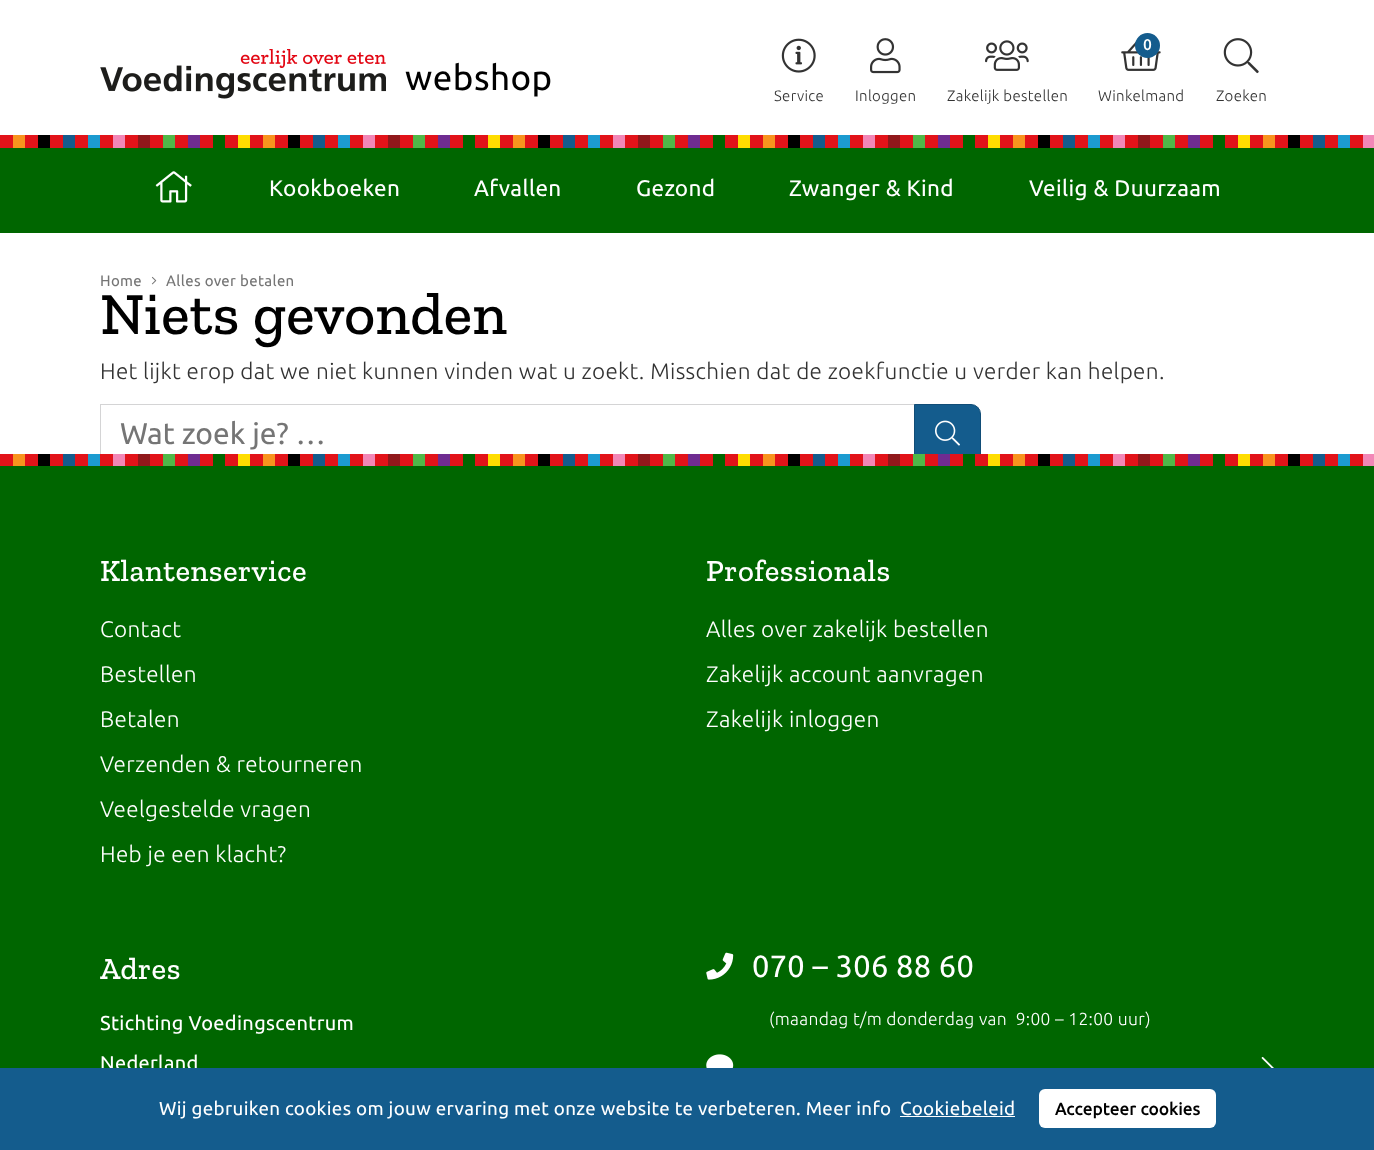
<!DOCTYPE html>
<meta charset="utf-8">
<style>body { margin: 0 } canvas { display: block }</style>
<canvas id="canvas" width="1374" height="1150"></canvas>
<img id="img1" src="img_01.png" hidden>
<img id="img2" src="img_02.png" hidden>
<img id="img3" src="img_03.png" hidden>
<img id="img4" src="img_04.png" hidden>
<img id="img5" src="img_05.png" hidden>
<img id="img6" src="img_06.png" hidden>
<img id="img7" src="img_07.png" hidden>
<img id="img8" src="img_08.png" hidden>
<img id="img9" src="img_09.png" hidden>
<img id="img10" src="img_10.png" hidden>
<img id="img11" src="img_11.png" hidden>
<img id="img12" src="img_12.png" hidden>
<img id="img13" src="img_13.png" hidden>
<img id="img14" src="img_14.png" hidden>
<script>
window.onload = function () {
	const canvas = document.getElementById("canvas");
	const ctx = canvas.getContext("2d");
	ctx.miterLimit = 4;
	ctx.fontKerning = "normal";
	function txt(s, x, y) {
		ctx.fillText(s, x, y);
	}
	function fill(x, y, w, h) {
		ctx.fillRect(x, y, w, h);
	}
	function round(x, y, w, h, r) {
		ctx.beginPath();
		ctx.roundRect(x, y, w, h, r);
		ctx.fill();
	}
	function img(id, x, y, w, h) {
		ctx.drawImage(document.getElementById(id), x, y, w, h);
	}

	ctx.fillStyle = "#FFFFFF";
	fill(0, 0, 1374, 1150);
	ctx.fillStyle = "#006600";
	fill(0, 148, 1374, 85);
	img("img1", 100, 49, 286, 50);
	img("img2", 781, 38, 35, 35);
	img("img3", 870, 38, 31, 36);
	img("img4", 985, 40, 44, 31);
	img("img5", 1121, 40, 40, 31);
	ctx.fillStyle = "#145C8D";
	ctx.beginPath();
	ctx.arc(1147.5, 45.5, 12.5, 0, Math.PI * 2);
	ctx.fill();
	img("img6", 1223, 38, 36, 36);
	img("img7", 155, 171, 37, 32);
	img("img8", 0, 135, 1374, 13);
	img("img9", 151, 276, 6, 9);
	ctx.strokeStyle = "#D4D4D5";
	ctx.strokeRect(100.5, 404.5, 814, 60);
	ctx.beginPath();
	ctx.roundRect(914.5, 404.5, 66, 60, [0, 9.5, 9.5, 0]);
	ctx.fill();
	ctx.strokeStyle = "#114D77";
	ctx.stroke();
	img("img10", 935, 420, 25, 26);
	ctx.fillStyle = "#006600";
	fill(0, 466, 1374, 602);
	img("img11", 0, 454, 1374, 12);
	img("img12", 706, 952, 28, 28);
	img("img13", 706, 1054, 28, 14);
	img("img14", 1261, 1057, 13, 11);
	ctx.letterSpacing = "0.5px";
	ctx.font = "35px Ubuntu";
	ctx.fillStyle = "#000000";
	txt("webshop", 405, 90);
	ctx.letterSpacing = "0.34px";
	ctx.font = "300 15px Ubuntu";
	ctx.fillStyle = "#333333";
	txt("Service", 774, 101);
	txt("Inloggen", 855, 101);
	txt("Zakelijk bestellen", 947, 101);
	ctx.font = "bold 15px Ubuntu";
	ctx.fillStyle = "#FFFFFF";
	txt("0", 1143, 50);
	ctx.font = "300 15px Ubuntu";
	ctx.fillStyle = "#333333";
	txt("Winkelmand", 1098, 101);
	txt("Zoeken", 1216, 101);
	ctx.font = "22.5px Ubuntu";
	ctx.fillStyle = "#FFFFFF";
	txt("Kookboeken", 269, 196);
	txt("Afvallen", 474, 196);
	txt("Gezond", 636, 196);
	txt("Zwanger & Kind", 789, 196);
	txt("Veilig & Duurzaam", 1029, 196);
	ctx.font = "15px Ubuntu";
	ctx.fillStyle = "#757575";
	txt("Home", 100, 286);
	txt("Alles over betalen", 166, 286);
	ctx.font = "500 59.75px Zilla Slab";
	ctx.fillStyle = "#000000";
	txt("Niets gevonden", 100, 334);
	ctx.font = "300 22.5px Ubuntu";
	ctx.fillStyle = "#333333";
	txt("Het lijkt erop dat we niet kunnen vinden wat u zoekt. Misschien dat de zoekfunctie u verder kan helpen.", 100, 379);
	ctx.letterSpacing = "0px";
	ctx.font = "30px Ubuntu";
	ctx.fillStyle = "#757575";
	txt("Wat zoek je? …", 120, 444);
	ctx.letterSpacing = "0.5px";
	ctx.font = "500 30.75px Zilla Slab";
	ctx.fillStyle = "#FFFFFF";
	txt("Klantenservice", 100, 581);
	ctx.letterSpacing = "0.34px";
	ctx.font = "300 22.5px Ubuntu";
	txt("Contact", 100, 637);
	txt("Bestellen", 100, 682);
	txt("Betalen", 100, 727);
	txt("Verzenden & retourneren", 100, 772);
	txt("Veelgestelde vragen", 100, 817);
	txt("Heb je een klacht?", 100, 862);
	ctx.letterSpacing = "0.5px";
	ctx.font = "500 30.75px Zilla Slab";
	txt("Professionals", 706, 581);
	ctx.letterSpacing = "0.34px";
	ctx.font = "300 22.5px Ubuntu";
	txt("Alles over zakelijk bestellen", 706, 637);
	txt("Zakelijk account aanvragen", 706, 682);
	txt("Zakelijk inloggen", 706, 727);
	ctx.letterSpacing = "0.5px";
	ctx.font = "500 30.75px Zilla Slab";
	txt("Adres", 100, 979);
	ctx.letterSpacing = "0.34px";
	ctx.font = "20px Ubuntu";
	txt("Stichting Voedingscentrum", 100, 1030);
	txt("Nederland", 100, 1070);
	ctx.font = "30.75px Ubuntu";
	txt("070 – 306 88 60", 752, 977);
	ctx.font = "300 17.4px Ubuntu";
	txt("(maandag t/m donderdag van  9:00 – 12:00 uur)", 769, 1025);
	ctx.fillStyle = "#145C8D";
	fill(0, 1068, 1374, 82);
	ctx.font = "18.75px Ubuntu";
	ctx.fillStyle = "#FFFFFF";
	txt("Wij gebruiken cookies om jouw ervaring met onze website te verbeteren. Meer info", 159, 1115);
	txt("Cookiebeleid", 900, 1115);
	fill(900, 1116, 115, 1);
	round(1039, 1089, 177, 39, 6);
	ctx.font = "bold 16.9px Ubuntu";
	ctx.fillStyle = "#000000";
	txt("Accepteer cookies", 1055, 1115);
};
</script>
